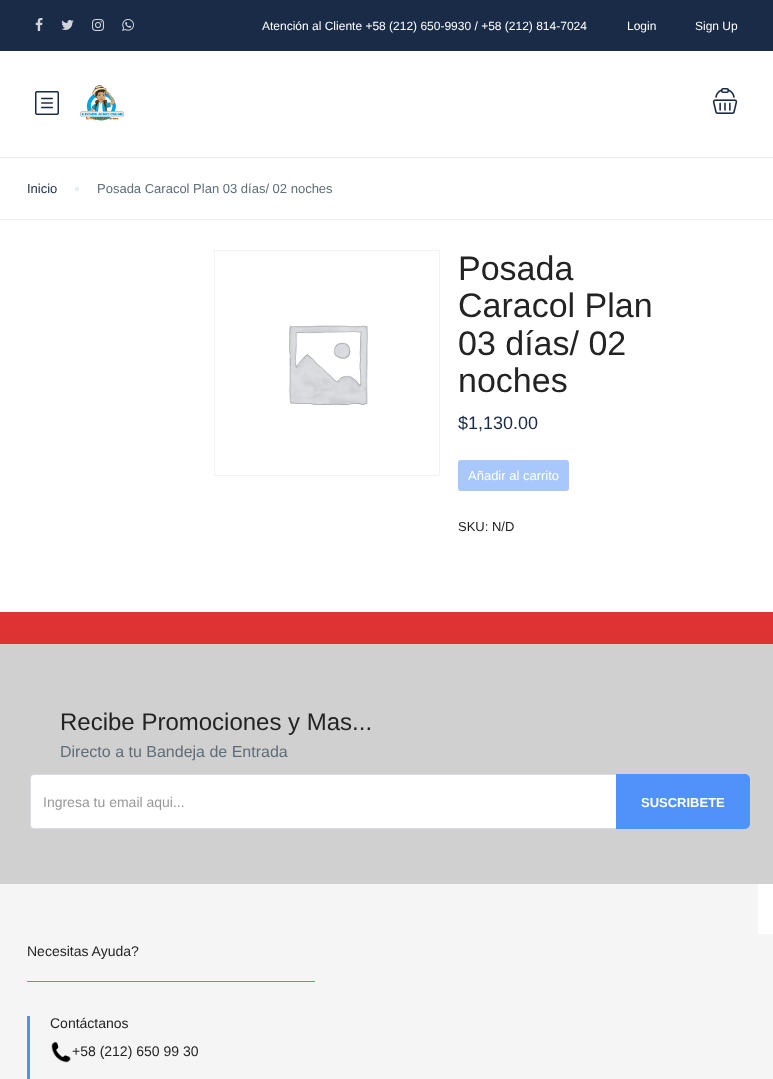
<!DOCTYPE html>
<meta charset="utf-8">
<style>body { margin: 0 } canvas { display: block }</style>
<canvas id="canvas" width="773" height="1079"></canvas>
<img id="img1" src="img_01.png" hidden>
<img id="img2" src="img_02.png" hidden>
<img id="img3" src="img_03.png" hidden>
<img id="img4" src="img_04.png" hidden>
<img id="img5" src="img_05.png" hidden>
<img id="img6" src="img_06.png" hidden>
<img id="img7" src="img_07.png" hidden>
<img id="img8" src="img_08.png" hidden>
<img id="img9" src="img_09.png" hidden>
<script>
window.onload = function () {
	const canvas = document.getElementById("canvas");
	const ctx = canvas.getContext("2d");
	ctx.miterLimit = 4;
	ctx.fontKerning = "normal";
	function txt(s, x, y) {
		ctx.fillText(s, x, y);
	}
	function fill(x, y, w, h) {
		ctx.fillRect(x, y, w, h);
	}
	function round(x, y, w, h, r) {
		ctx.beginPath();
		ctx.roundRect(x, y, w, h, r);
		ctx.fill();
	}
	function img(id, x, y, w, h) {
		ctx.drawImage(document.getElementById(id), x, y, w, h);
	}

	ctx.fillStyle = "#FFFFFF";
	fill(0, 0, 773, 1079);
	ctx.fillStyle = "#1A2B48";
	fill(0, 0, 773, 51);
	img("img1", 35, 18, 8, 13);
	img("img2", 61, 20, 13, 10);
	img("img3", 92, 19, 12, 12);
	img("img4", 122, 19, 12, 12);
	ctx.fillStyle = "#EAEEF3";
	fill(0, 157, 773, 1);
	img("img5", 35, 91, 24, 24);
	img("img6", 80, 85, 45, 36);
	img("img7", 712, 88, 26, 26);
	fill(0, 219, 773, 1);
	fill(75, 187, 4, 4);
	ctx.strokeStyle = "#F2F2F2";
	ctx.strokeRect(214.5, 250.5, 225, 225);
	img("img8", 289, 325, 79, 80);
	ctx.fillStyle = "#A8C8FD";
	round(458, 460, 111, 31, 3);
	ctx.fillStyle = "#DD3333";
	fill(0, 612, 773, 32);
	ctx.fillStyle = "#D0D0D0";
	fill(0, 644, 773, 240);
	ctx.fillStyle = "#FFFFFF";
	ctx.beginPath();
	ctx.roundRect(30.5, 774.5, 719, 54, 3.5);
	ctx.fill();
	ctx.strokeStyle = "#D7DCE3";
	ctx.stroke();
	ctx.fillStyle = "#5191FA";
	ctx.beginPath();
	ctx.roundRect(616, 774, 134, 55, [0, 5, 5, 0]);
	ctx.fill();
	ctx.fillStyle = "#F5F5F5";
	fill(0, 884, 758, 50);
	fill(0, 934, 773, 145);
	ctx.fillStyle = "#5191FA";
	fill(27, 981, 288, 1);
	fill(27, 1016, 3, 63);
	img("img9", 51, 1041, 20, 22);
	ctx.font = "12px Liberation Sans";
	ctx.fillStyle = "#FFFFFF";
	txt("Atención al Cliente +58 (212) 650-9930 / +58 (212) 814-7024", 262, 30);
	txt("Login", 627, 30);
	txt("Sign Up", 695, 30);
	ctx.font = "13px Liberation Sans";
	ctx.fillStyle = "#1A2B48";
	txt("Inicio", 27, 193);
	ctx.fillStyle = "#5E6D77";
	txt("Posada Caracol Plan 03 días/ 02 noches", 97, 193);
	ctx.font = "34px Liberation Sans";
	ctx.fillStyle = "#232323";
	txt("Posada", 458, 280);
	txt("Caracol Plan", 458, 317);
	txt("03 días/ 02", 458, 355);
	txt("noches", 458, 392);
	ctx.font = "18px Liberation Sans";
	ctx.fillStyle = "#1A2B48";
	txt("$1,130.00", 458, 429);
	ctx.font = "13px Liberation Sans";
	ctx.fillStyle = "#FFFFFF";
	txt("Añadir al carrito", 468, 480);
	ctx.fillStyle = "#232323";
	txt("SKU: N/D", 458, 531);
	ctx.font = "24px Liberation Sans";
	txt("Recibe Promociones y Mas...", 60, 730);
	ctx.font = "16px Liberation Sans";
	ctx.fillStyle = "#5E6D77";
	txt("Directo a tu Bandeja de Entrada", 60, 757);
	ctx.font = "14px Liberation Sans";
	ctx.fillStyle = "#999999";
	txt("Ingresa tu email aqui...", 43, 807);
	ctx.font = "bold 13px Liberation Sans";
	ctx.fillStyle = "#FFFFFF";
	txt("SUSCRIBETE", 641, 807);
	ctx.font = "14px Liberation Sans";
	ctx.fillStyle = "#232323";
	txt("Necesitas Ayuda?", 27, 956);
	txt("Contáctanos", 50, 1028);
	txt("+58 (212) 650 99 30", 72, 1056);
};
</script>
